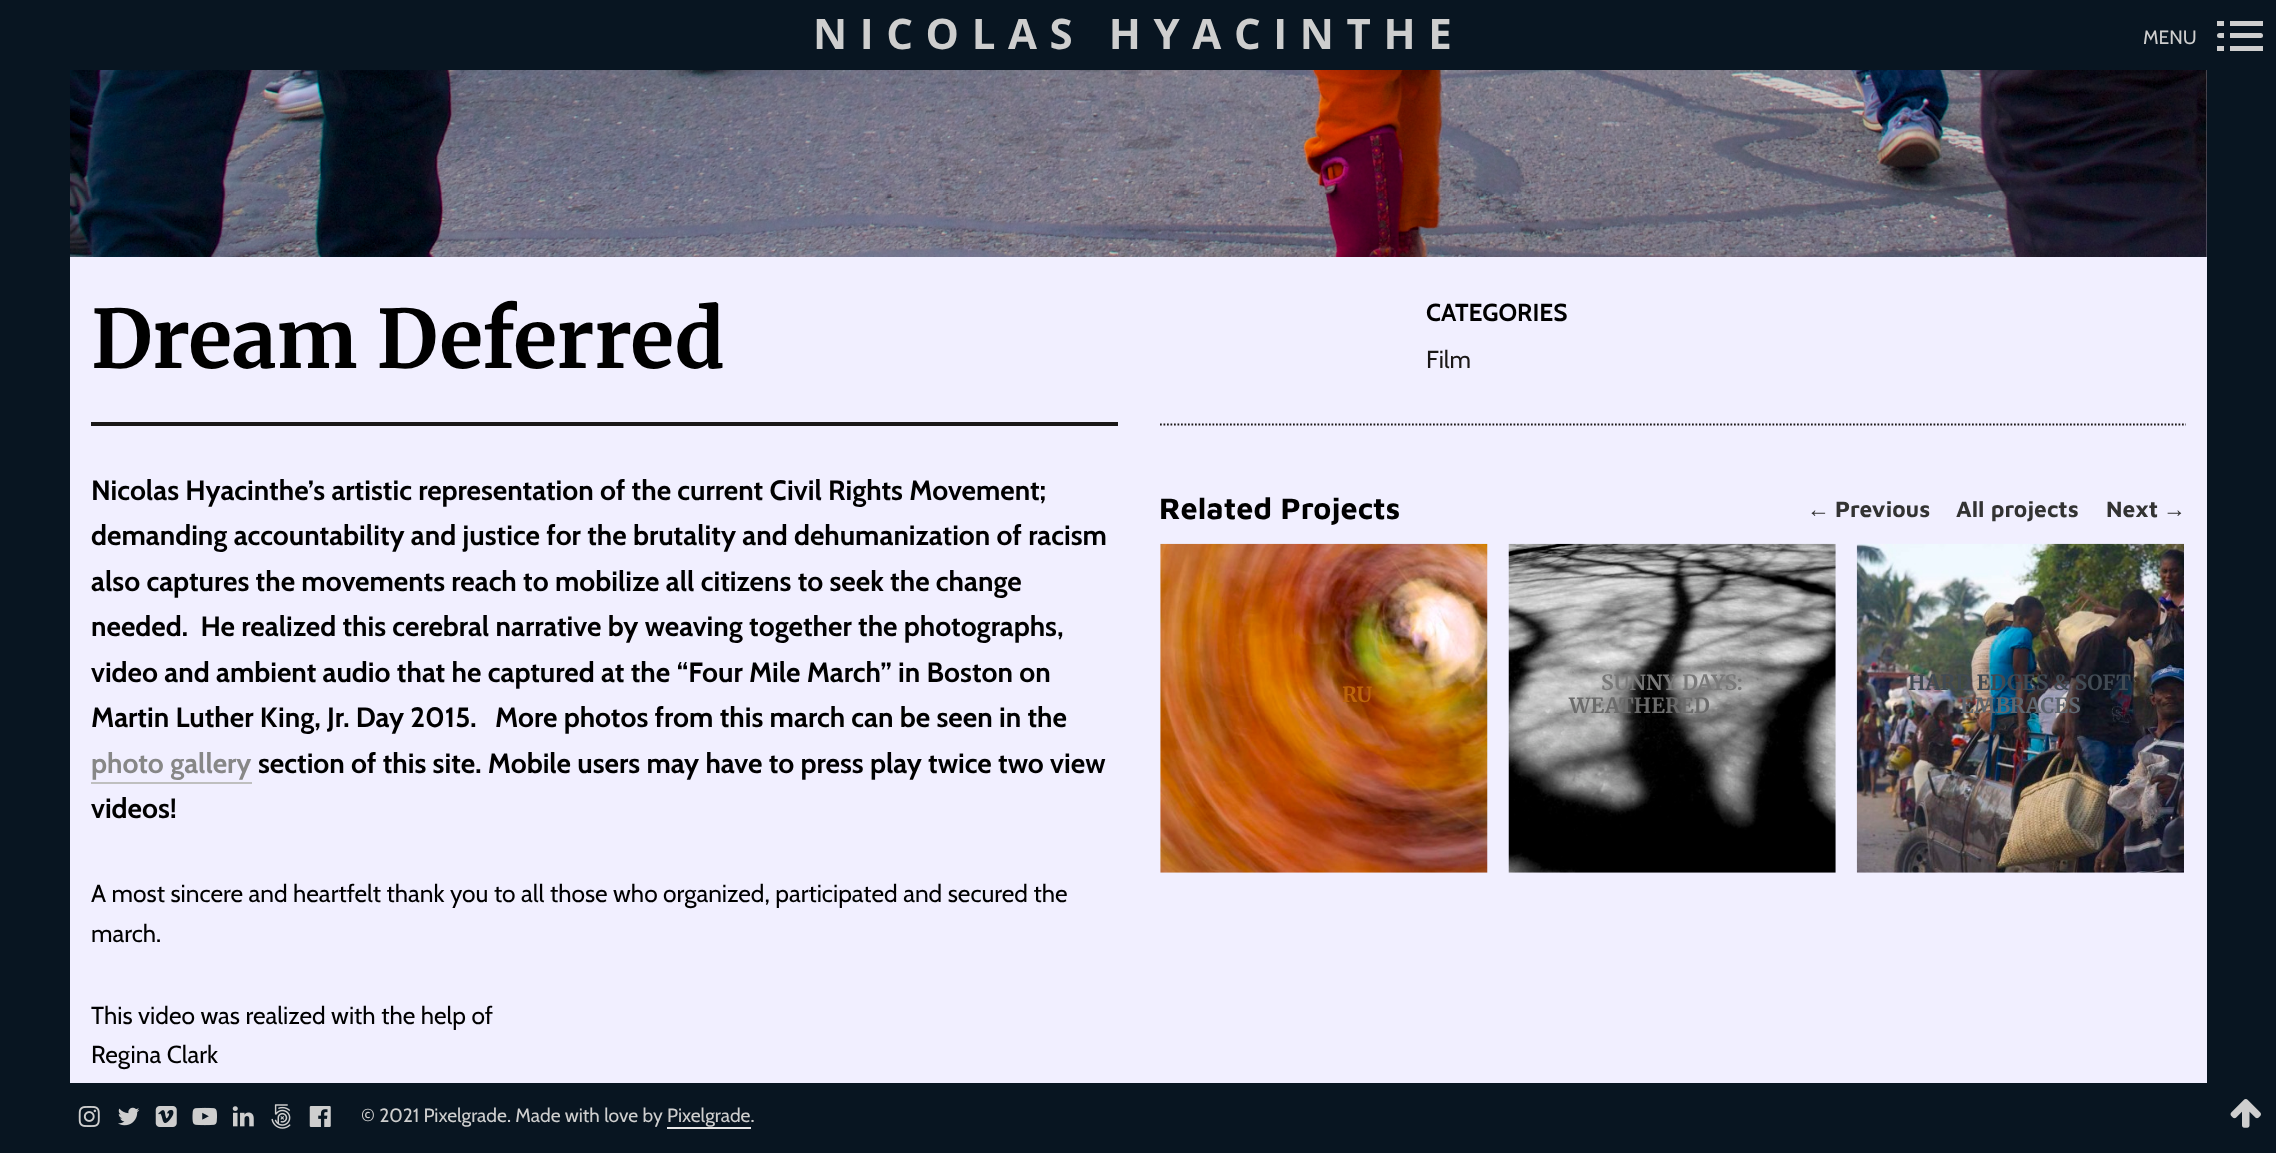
<!DOCTYPE html>
<meta charset="utf-8">
<style>body { margin: 0 } canvas { display: block }</style>
<canvas id="canvas" width="2276" height="1153"></canvas>
<img id="img1" src="img_01.png" hidden>
<img id="img2" src="img_02.png" hidden>
<img id="img3" src="img_03.png" hidden>
<img id="img4" src="img_04.png" hidden>
<img id="img5" src="img_05.png" hidden>
<img id="img6" src="img_06.png" hidden>
<img id="img7" src="img_07.png" hidden>
<img id="img8" src="img_08.png" hidden>
<img id="img9" src="img_09.png" hidden>
<img id="img10" src="img_10.png" hidden>
<img id="img11" src="img_11.png" hidden>
<img id="img12" src="img_12.png" hidden>
<script>
window.onload = function () {
	const canvas = document.getElementById("canvas");
	const ctx = canvas.getContext("2d");
	ctx.miterLimit = 4;
	ctx.fontKerning = "normal";
	function txt(s, x, y) {
		ctx.fillText(s, x, y);
	}
	function fill(x, y, w, h) {
		ctx.fillRect(x, y, w, h);
	}
	function img(id, x, y, w, h) {
		ctx.drawImage(document.getElementById(id), x, y, w, h);
	}

	ctx.fillStyle = "#F1EFFF";
	fill(0, 0, 2276, 1153);
	ctx.fillStyle = "#081521";
	fill(0, 0, 2276, 70);
	ctx.fillStyle = "#CECECE";
	ctx.beginPath();
	ctx.roundRect(2217, 33, 7, 5, [2.5, 0, 0, 2.5]);
	ctx.fill();
	ctx.beginPath();
	ctx.roundRect(2230, 33, 33, 5, [0, 2.5, 2.5, 0]);
	ctx.fill();
	fill(2217, 21, 7, 5);
	fill(2230, 21, 33, 5);
	fill(2217, 46, 7, 5);
	fill(2230, 46, 33, 5);
	ctx.fillStyle = "#081521";
	fill(0, 70, 70, 1013);
	img("img1", 70, 70, 2137, 187);
	ctx.fillStyle = "#1A1717";
	fill(91, 422, 1027, 4);
	ctx.fillStyle = "#BFBFBF";
	fill(91, 782, 161, 2);
	ctx.beginPath();
	ctx.moveTo(1160, 424.5);
	ctx.lineTo(2186, 424.5);
	ctx.strokeStyle = "#1A1717";
	ctx.lineWidth = 1.8;
	ctx.setLineDash([1.75, 1.75]);
	ctx.stroke();
	img("img2", 1160, 543, 328, 330);
	img("img3", 1508, 543, 328, 330);
	img("img4", 1856, 543, 328, 330);
	ctx.fillStyle = "#081521";
	fill(2207, 70, 69, 1013);
	fill(0, 1083, 2276, 70);
	img("img5", 78, 1106, 22, 21);
	img("img6", 118, 1107, 22, 19);
	img("img7", 155, 1106, 22, 21);
	img("img8", 192, 1107, 25, 19);
	img("img9", 232, 1106, 22, 21);
	img("img10", 271, 1104, 20, 25);
	img("img11", 309, 1106, 22, 21);
	ctx.fillStyle = "#E8E8E8";
	fill(667, 1127, 84, 2);
	img("img12", 2230, 1099, 31, 29);
	ctx.letterSpacing = "12.6px";
	ctx.font = "bold 42px Open Sans";
	ctx.fillStyle = "#CECECE";
	txt("NICOLAS HYACINTHE", 813, 49);
	ctx.letterSpacing = "0px";
	ctx.font = "19.25px Cabin";
	txt("MENU", 2143, 44);
	ctx.font = "bold 80.5px Merriweather";
	ctx.fillStyle = "#000000";
	txt("Dream Deferred", 91, 368);
	ctx.font = "bold 28px Cabin";
	txt("Nicolas Hyacinthe’s artistic representation of the current Civil Rights Movement;", 91, 500);
	txt("demanding accountability and justice for the brutality and dehumanization of racism", 91, 545);
	txt("also captures the movements reach to mobilize all citizens to seek the change", 91, 591);
	txt("needed.  He realized this cerebral narrative by weaving together the photographs,", 91, 636);
	txt("video and ambient audio that he captured at the “Four Mile March” in Boston on", 91, 682);
	txt("Martin Luther King, Jr. Day 2015.", 91, 727);
	txt("More photos from this march can be seen in the", 495, 727);
	ctx.fillStyle = "#878787";
	txt("photo gallery", 91, 773);
	ctx.fillStyle = "#000000";
	txt("section of this site. Mobile users may have to press play twice two view", 258, 773);
	txt("videos!", 91, 818);
	ctx.font = "24.5px Cabin";
	txt("A most sincere and heartfelt thank you to all those who organized, participated and secured the", 91, 902);
	txt("march.", 91, 942);
	txt("This video was realized with the help of", 91, 1024);
	txt("Regina Clark", 91, 1063);
	ctx.font = "bold 24.5px Cabin";
	txt("CATEGORIES", 1426, 321);
	ctx.font = "24.5px Cabin";
	ctx.fillStyle = "#1A1717";
	txt("Film", 1426, 368);
	ctx.font = "bold 30.5px Maven Pro";
	ctx.fillStyle = "#000000";
	txt("Related Projects", 1159, 519);
	ctx.font = "bold 22.75px Liberation Sans";
	ctx.fillStyle = "#333333";
	txt("←", 1807, 517);
	ctx.font = "bold 22.75px Maven Pro";
	txt("Previous", 1835, 517);
	txt("All projects", 1956, 517);
	txt("Next", 2106, 517);
	ctx.font = "bold 22.75px Liberation Sans";
	txt("→", 2163, 517);
	ctx.font = "bold 21px Merriweather";
	ctx.fillStyle = "#BC650B";
	txt("RU", 1342, 702);
	ctx.fillStyle = "#797979";
	txt("SUNNY DAYS:", 1601, 690);
	ctx.fillStyle = "#6B6B6B";
	txt("WEATHERED", 1569, 713);
	ctx.fillStyle = "#414A53";
	txt("HARD EDGES & SOFT", 1908, 690);
	ctx.fillStyle = "#5F6770";
	txt("EMBRACES", 1960, 713);
	ctx.font = "19.25px Cabin";
	ctx.fillStyle = "#CECECE";
	txt("© 2021 Pixelgrade. Made with love by Pixelgrade.", 361, 1122);
};
</script>
